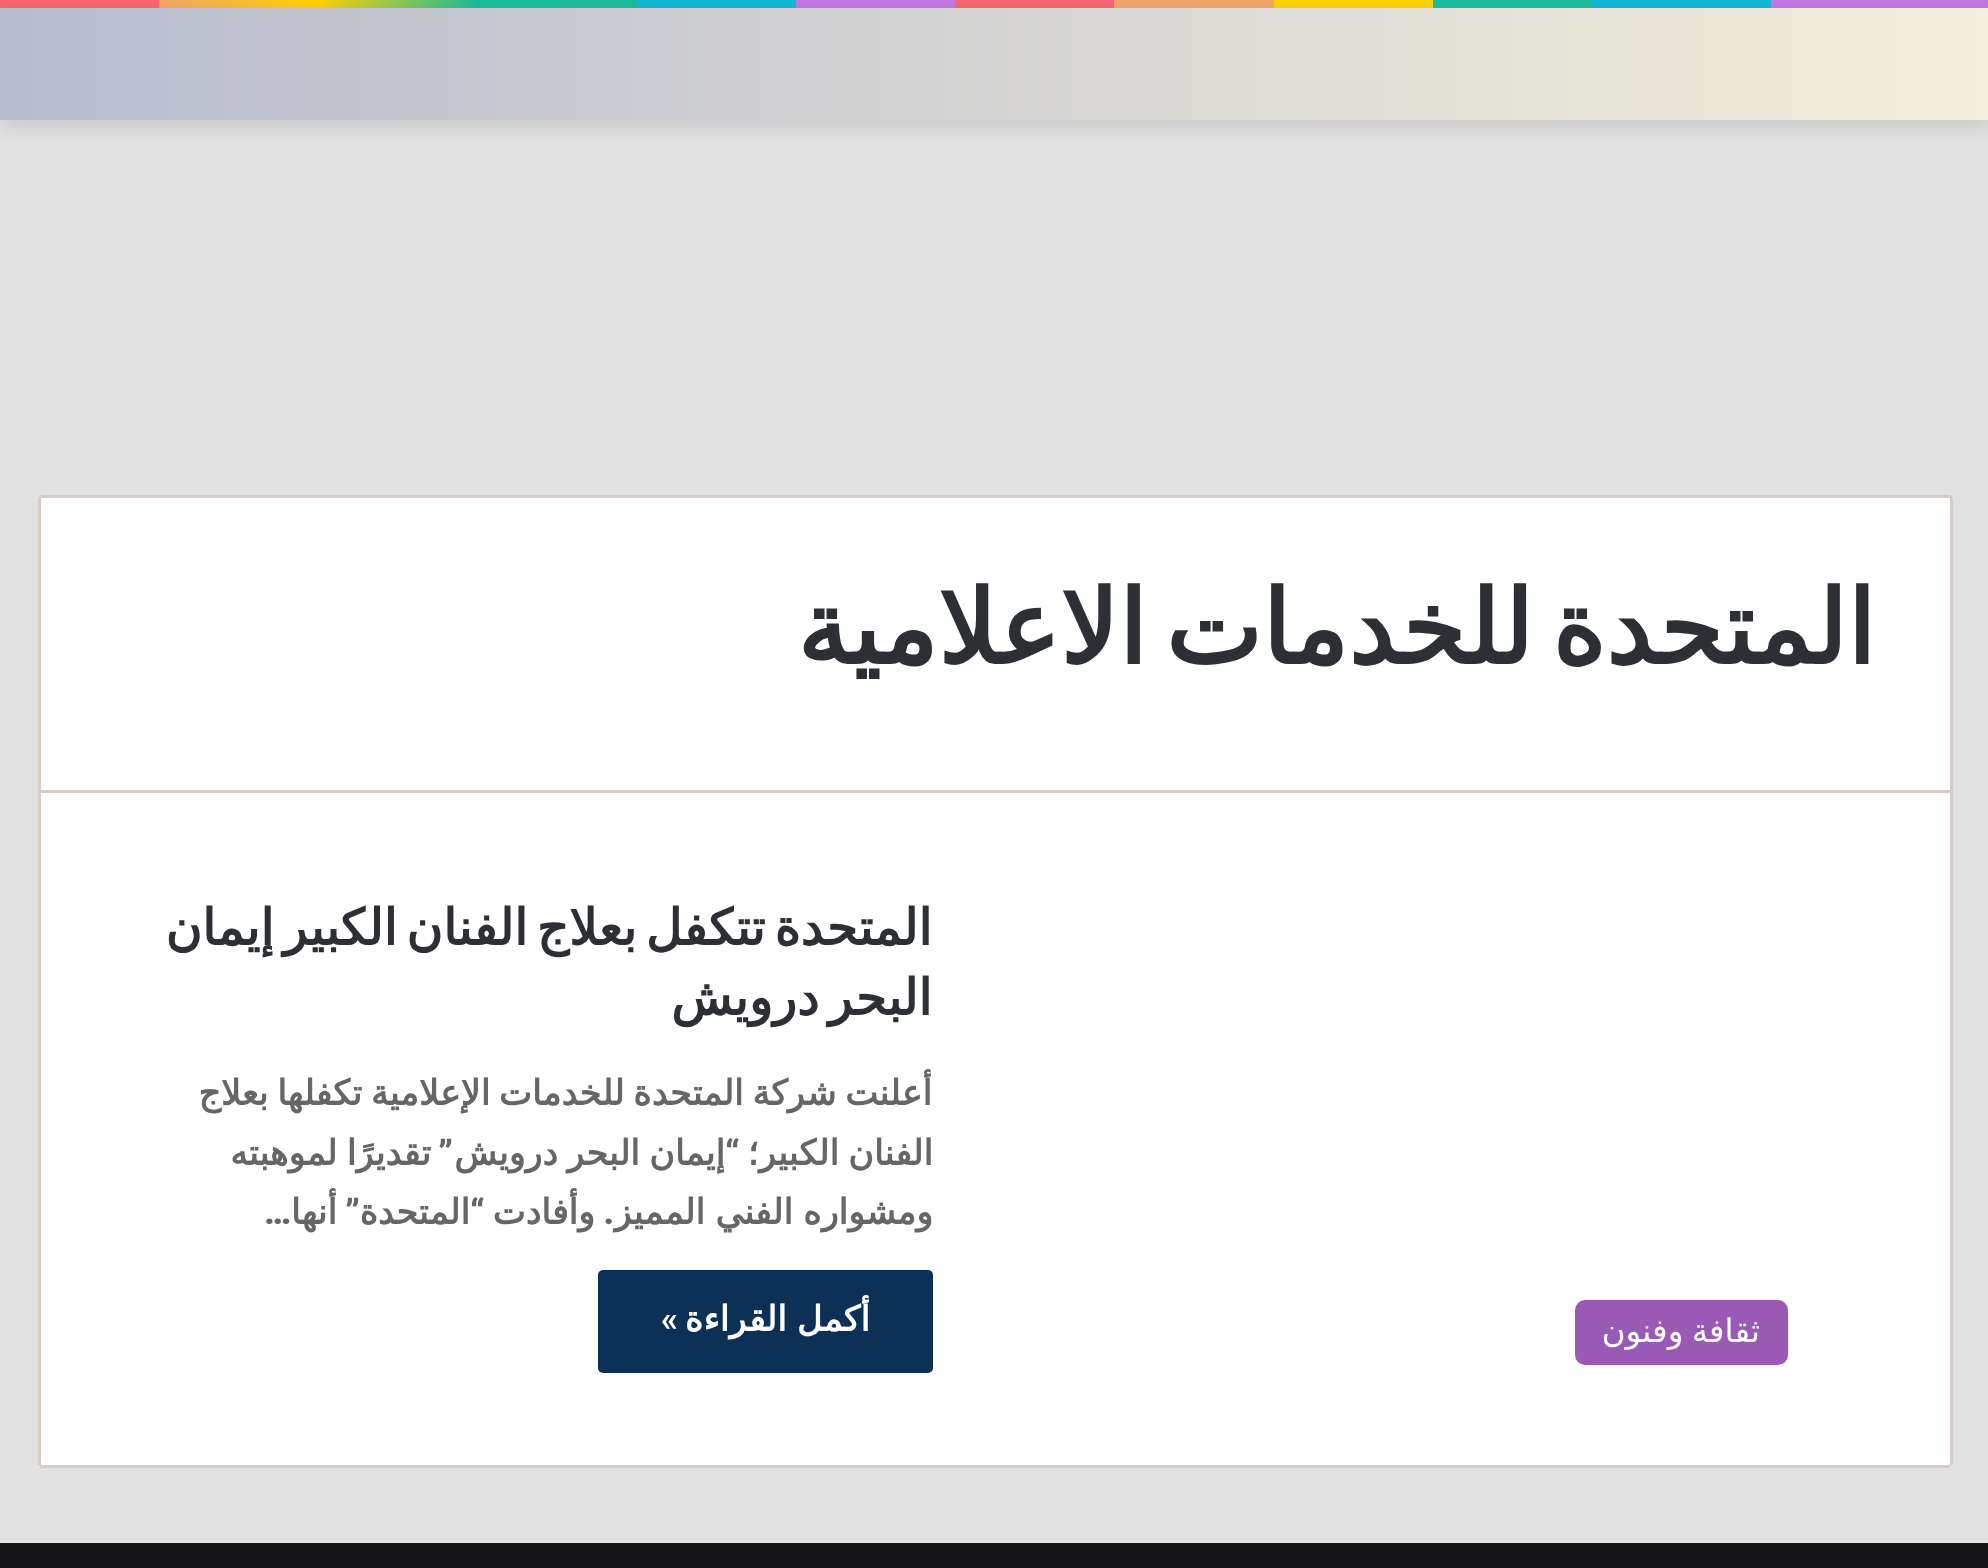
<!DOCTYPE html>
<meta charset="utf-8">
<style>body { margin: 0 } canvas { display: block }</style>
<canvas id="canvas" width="1988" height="1568"></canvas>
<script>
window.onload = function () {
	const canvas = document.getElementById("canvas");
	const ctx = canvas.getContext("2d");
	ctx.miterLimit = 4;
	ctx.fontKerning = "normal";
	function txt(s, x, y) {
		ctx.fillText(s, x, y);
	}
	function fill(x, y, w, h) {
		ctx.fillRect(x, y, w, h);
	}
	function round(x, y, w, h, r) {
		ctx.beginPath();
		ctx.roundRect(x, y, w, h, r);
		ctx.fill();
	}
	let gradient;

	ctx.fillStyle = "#E2E2E2";
	fill(0, 0, 1988, 1568);
	gradient = ctx.createLinearGradient(0, 3.8, 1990, 3.7);
	gradient.addColorStop(0, "#F76570");
	gradient.addColorStop(0.08, "#F76570");
	gradient.addColorStop(0.08, "#F3A46B");
	gradient.addColorStop(0.16, "#FFD205");
	gradient.addColorStop(0.24, "#1BBC9B");
	gradient.addColorStop(0.32, "#1BBC9B");
	gradient.addColorStop(0.32, "#14B9D5");
	gradient.addColorStop(0.4, "#14B9D5");
	gradient.addColorStop(0.4, "#C377E4");
	gradient.addColorStop(0.48, "#C377E4");
	gradient.addColorStop(0.48, "#F76570");
	gradient.addColorStop(0.56, "#F76570");
	gradient.addColorStop(0.56, "#F3A46B");
	gradient.addColorStop(0.64, "#F3A46B");
	gradient.addColorStop(0.64, "#FFD205");
	gradient.addColorStop(0.72, "#FFD205");
	gradient.addColorStop(0.72, "#1BBC9B");
	gradient.addColorStop(0.8, "#1BBC9B");
	gradient.addColorStop(0.8, "#14B9D5");
	gradient.addColorStop(0.89, "#14B9D5");
	gradient.addColorStop(0.89, "#C377E4");
	gradient.addColorStop(1, "#C377E4");
	ctx.fillStyle = gradient;
	fill(0, 0, 1988, 8);
	ctx.fillStyle = "rgba(0, 0, 0, 0.1)";
	ctx.filter = "blur(9px)";
	ctx.beginPath();
	ctx.rect(0, 15, 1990, 113);
	ctx.fill();
	ctx.filter = "none";
	gradient = ctx.createLinearGradient(0, 64, 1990, 64);
	gradient.addColorStop(0, "#B7BBCC");
	gradient.addColorStop(1, "#F4EFDC");
	ctx.fillStyle = gradient;
	fill(0, 8, 1988, 112);
	ctx.fillStyle = "#FFFFFF";
	ctx.beginPath();
	ctx.roundRect(39.5, 496.5, 1912, 295, [3.5, 3.5, 0, 0]);
	ctx.fill();
	ctx.strokeStyle = "#D7CCC8";
	ctx.lineWidth = 3;
	ctx.stroke();
	ctx.beginPath();
	ctx.roundRect(40, 793, 1910, 672, [0, 0, 2.5, 2.5]);
	ctx.fill();
	ctx.fillStyle = "#D7CCC8";
	fill(1950, 793, 3, 672);
	fill(40, 1465, 1910, 3);
	fill(38, 793, 3, 672);
	ctx.fillStyle = "#9B59B6";
	round(1575, 1300, 213, 65, 10);
	ctx.fillStyle = "#0D3056";
	round(598, 1270, 335, 103, 5);
	ctx.fillStyle = "#161619";
	fill(0, 1543, 1988, 25);
	ctx.wordSpacing = "-14px";
	ctx.direction = "rtl";
	ctx.font = "bold 102.5px DejaVu Sans";
	ctx.fillStyle = "#2C2F34";
	txt("المتحدة للخدمات الاعلامية", 1875, 664);
	ctx.wordSpacing = "-2px";
	ctx.font = "32.5px DejaVu Sans";
	ctx.fillStyle = "#FFFFFF";
	txt("ثقافة وفنون", 1760, 1342);
	ctx.wordSpacing = "-7px";
	ctx.font = "bold 50px DejaVu Sans";
	ctx.fillStyle = "#2C2F34";
	txt("المتحدة تتكفل بعلاج الفنان الكبير إيمان", 932, 945);
	txt("البحر درويش", 932, 1015);
	ctx.wordSpacing = "-2.5px";
	ctx.font = "bold 35px DejaVu Sans";
	ctx.fillStyle = "#666666";
	txt("أعلنت شركة المتحدة للخدمات الإعلامية تكفلها بعلاج", 932, 1105);
	ctx.wordSpacing = "-2px";
	txt("الفنان الكبير؛", 933, 1165);
	ctx.wordSpacing = "0px";
	ctx.font = "900 35px Roboto";
	txt("“", 740, 1165);
	ctx.wordSpacing = "-2px";
	ctx.font = "bold 35px DejaVu Sans";
	txt("إيمان البحر درويش", 725, 1165);
	ctx.wordSpacing = "0px";
	ctx.font = "900 35px Roboto";
	txt("”", 453, 1165);
	ctx.wordSpacing = "-2px";
	ctx.font = "bold 35px DejaVu Sans";
	txt("تقديرًا لموهبته", 431, 1165);
	ctx.wordSpacing = "-1px";
	txt("ومشواره الفني المميز", 933, 1224);
	ctx.wordSpacing = "0px";
	ctx.font = "900 35px Roboto";
	txt(".", 614, 1224);
	ctx.font = "bold 35px DejaVu Sans";
	txt("وأفادت", 595, 1224);
	ctx.font = "900 35px Roboto";
	txt("“", 485, 1224);
	ctx.font = "bold 35px DejaVu Sans";
	txt("المتحدة", 470, 1224);
	ctx.font = "900 35px Roboto";
	txt("”", 360, 1224);
	ctx.font = "bold 35px DejaVu Sans";
	txt("أنها", 337, 1224);
	ctx.font = "900 35px Roboto";
	txt("…", 291, 1224);
	ctx.wordSpacing = "-1px";
	ctx.font = "bold 35px DejaVu Sans";
	ctx.fillStyle = "#FFFFFF";
	txt("أكمل القراءة", 870, 1331);
	ctx.wordSpacing = "0px";
	ctx.font = "600 35px Roboto";
	txt("»", 678, 1331);
};
</script>
